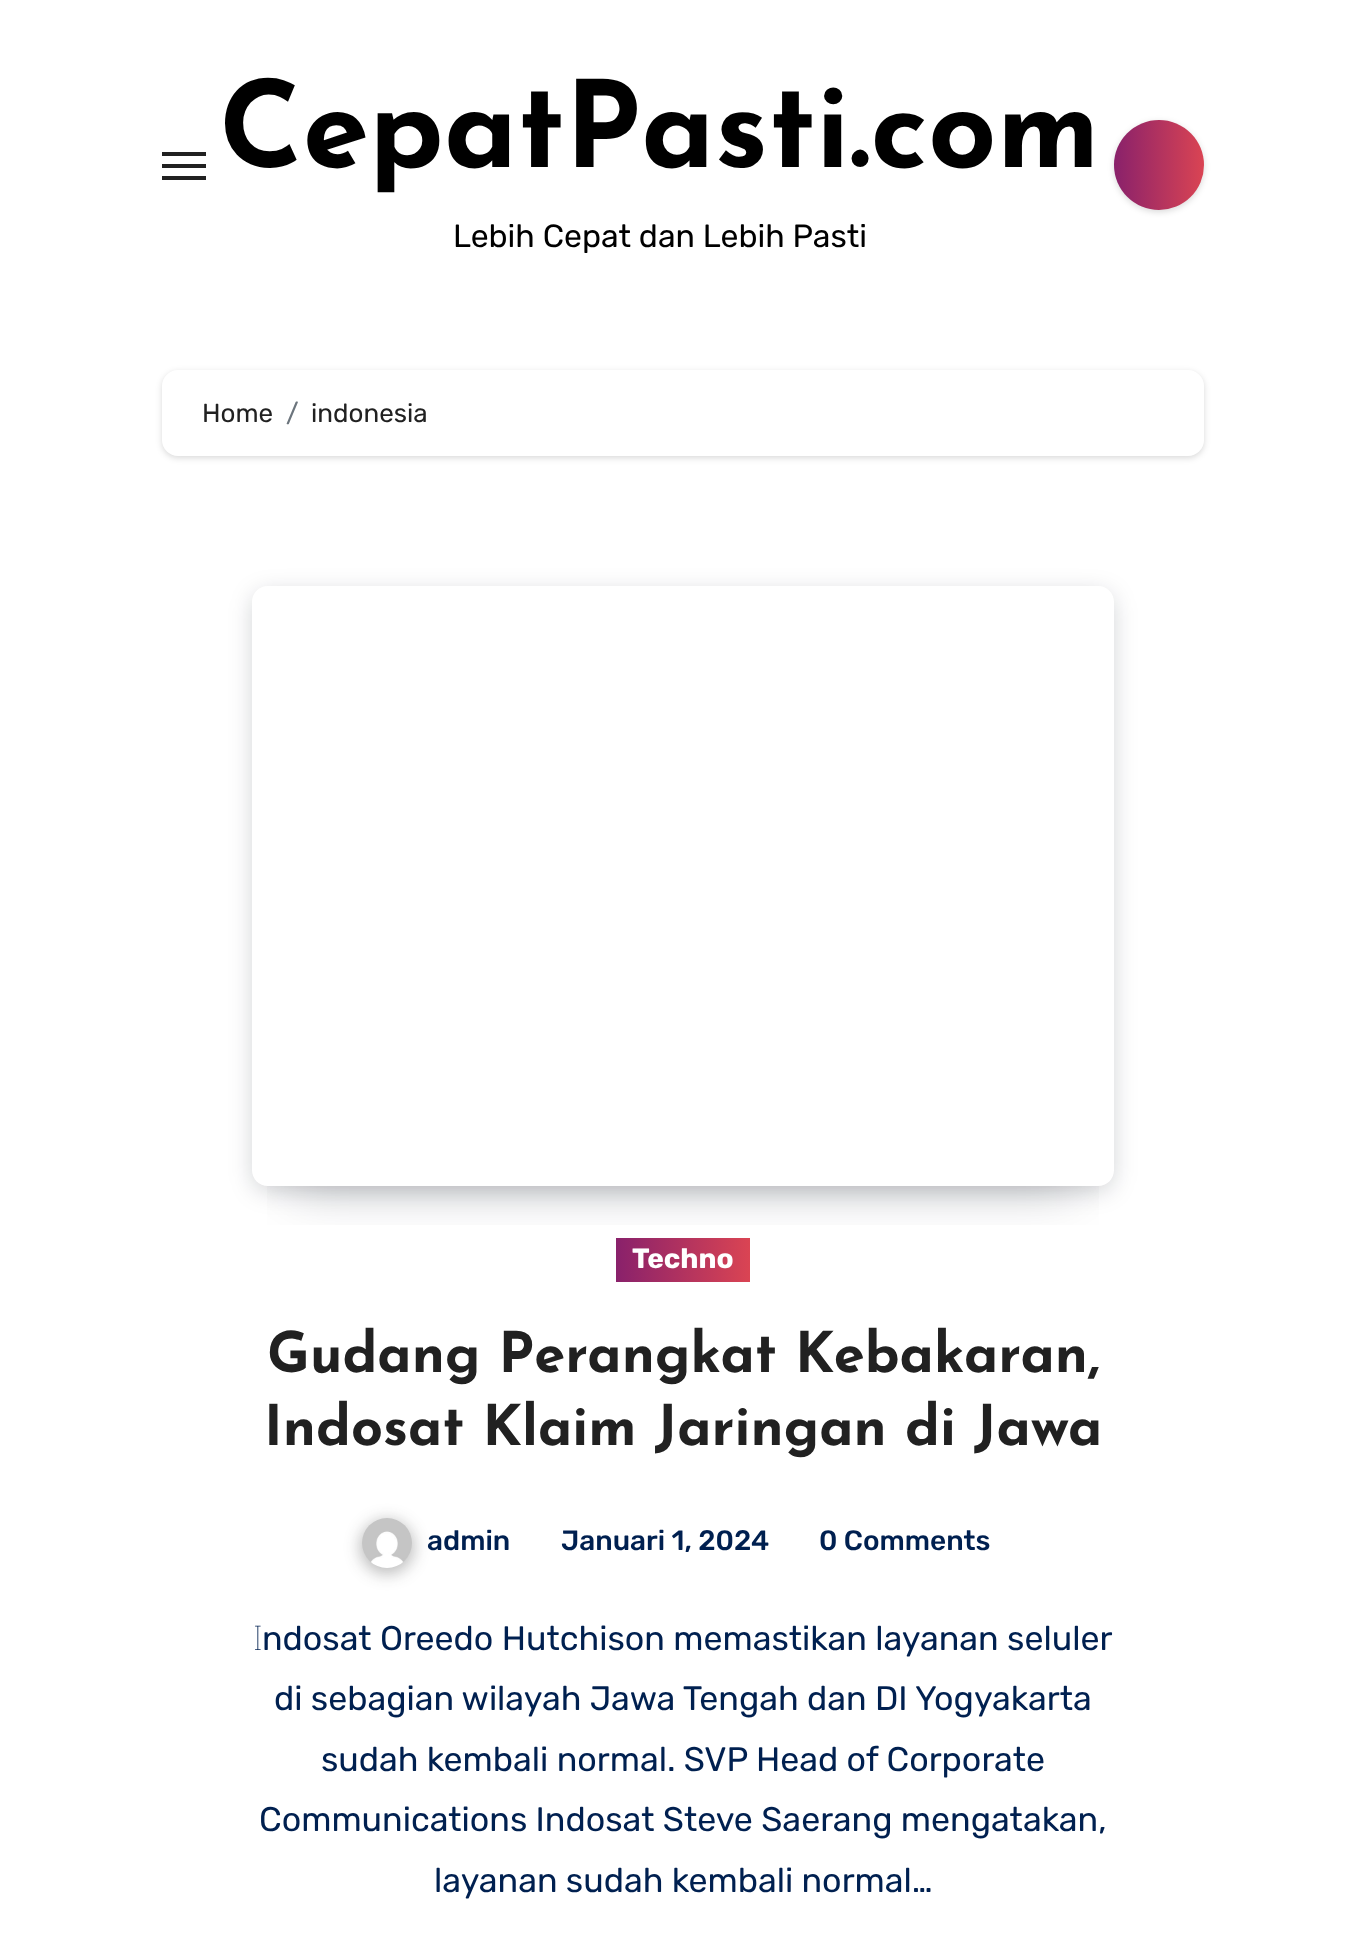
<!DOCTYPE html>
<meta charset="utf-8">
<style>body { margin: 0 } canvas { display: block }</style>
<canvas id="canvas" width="1365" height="1937"></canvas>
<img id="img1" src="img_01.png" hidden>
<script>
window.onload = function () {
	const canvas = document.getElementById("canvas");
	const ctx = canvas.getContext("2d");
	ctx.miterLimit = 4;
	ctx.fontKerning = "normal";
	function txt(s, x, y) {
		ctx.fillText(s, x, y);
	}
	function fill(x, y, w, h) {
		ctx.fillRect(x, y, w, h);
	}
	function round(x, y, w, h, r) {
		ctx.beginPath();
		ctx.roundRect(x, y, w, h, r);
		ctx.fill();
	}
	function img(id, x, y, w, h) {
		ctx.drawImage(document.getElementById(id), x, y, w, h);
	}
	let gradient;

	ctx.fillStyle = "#FFFFFF";
	fill(0, 0, 1365, 1937);
	ctx.fillStyle = "#212121";
	fill(162, 152, 44, 4);
	fill(162, 164, 44, 4);
	fill(162, 176, 44, 4);
	ctx.fillStyle = "rgba(0, 0, 0, 0.15)";
	ctx.filter = "blur(3px)";
	ctx.beginPath();
	ctx.roundRect(1114, 122, 90, 90, 45);
	ctx.fill();
	ctx.filter = "none";
	gradient = ctx.createLinearGradient(1114, 165, 1204, 165);
	gradient.addColorStop(0, "#89216B");
	gradient.addColorStop(1, "#DA4453");
	ctx.fillStyle = gradient;
	ctx.beginPath();
	ctx.arc(1159, 165, 45, 0, Math.PI * 2);
	ctx.fill();
	ctx.fillStyle = "rgba(0, 0, 0, 0.15)";
	ctx.filter = "blur(3px)";
	ctx.beginPath();
	ctx.roundRect(162, 372, 1042, 86, 16);
	ctx.fill();
	ctx.filter = "none";
	ctx.fillStyle = "#FFFFFF";
	round(162, 370, 1042, 86, 16);
	ctx.save();
	ctx.beginPath();
	ctx.rect(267, 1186, 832, 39);
	ctx.clip();
	ctx.fillStyle = "rgba(7, 10, 25, 0.2)";
	ctx.filter = "blur(27px)";
	ctx.beginPath();
	ctx.rect(292, 670, 782, 520);
	ctx.fill();
	ctx.filter = "none";
	ctx.restore();
	ctx.save();
	ctx.beginPath();
	ctx.moveTo(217, 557);
	ctx.lineTo(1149, 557);
	ctx.lineTo(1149, 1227);
	ctx.lineTo(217, 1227);
	ctx.closePath();
	ctx.moveTo(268, 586);
	ctx.lineTo(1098, 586);
	ctx.bezierCurveTo(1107, 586, 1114, 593, 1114, 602);
	ctx.lineTo(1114, 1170);
	ctx.bezierCurveTo(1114, 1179, 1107, 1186, 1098, 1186);
	ctx.lineTo(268, 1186);
	ctx.bezierCurveTo(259, 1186, 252, 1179, 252, 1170);
	ctx.lineTo(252, 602);
	ctx.bezierCurveTo(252, 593, 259, 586, 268, 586);
	ctx.closePath();
	ctx.clip("evenodd");
	ctx.fillStyle = "rgba(7, 10, 25, 0.2)";
	ctx.filter = "blur(12px)";
	ctx.beginPath();
	ctx.roundRect(254, 594, 858, 596, 14);
	ctx.fill();
	ctx.filter = "none";
	ctx.restore();
	gradient = ctx.createLinearGradient(616, 1260, 750, 1260);
	gradient.addColorStop(0, "#89216B");
	gradient.addColorStop(1, "#DA4453");
	ctx.fillStyle = gradient;
	fill(616, 1238, 134, 44);
	ctx.fillStyle = "rgba(33, 33, 33, 0.3)";
	ctx.filter = "blur(8px)";
	ctx.beginPath();
	ctx.roundRect(360, 1520, 54, 54, 27);
	ctx.fill();
	ctx.filter = "none";
	img("img1", 362, 1518, 50, 50);
	ctx.font = "bold 120px Josefin Sans";
	ctx.fillStyle = "#000000";
	txt("CepatPasti.com", 219, 167);
	ctx.font = "300 32px Rubik";
	txt("Lebih Cepat dan Lebih Pasti", 453, 247);
	ctx.font = "300 26px Rubik";
	ctx.fillStyle = "#212121";
	txt("Home", 202, 422);
	ctx.fillStyle = "#6C757D";
	txt("/", 286, 422);
	ctx.fillStyle = "#212121";
	txt("indonesia", 311, 422);
	ctx.font = "bold 28px Rubik";
	ctx.fillStyle = "#FFFFFF";
	txt("Techno", 632, 1268);
	ctx.font = "bold 56px Josefin Sans";
	ctx.fillStyle = "#212121";
	txt("Gudang Perangkat Kebakaran,", 267, 1372);
	txt("Indosat Klaim Jaringan di Jawa", 264, 1445);
	ctx.font = "500 28px Rubik";
	ctx.fillStyle = "#002050";
	txt("admin", 427, 1550);
	txt("Januari 1, 2024", 561, 1550);
	txt("0 Comments", 819, 1550);
	ctx.font = "100 34px Noto Sans";
	txt("I", 253, 1650);
	ctx.font = "300 34px Rubik";
	txt("ndosat Oreedo Hutchison memastikan layanan seluler", 262, 1650);
	txt("di sebagian wilayah Jawa Tengah dan DI Yogyakarta", 274, 1710);
	txt("sudah kembali normal. SVP Head of Corporate", 321, 1771);
	txt("Communications Indosat Steve Saerang mengatakan,", 259, 1831);
	txt("layanan sudah kembali normal…", 434, 1892);
};
</script>
